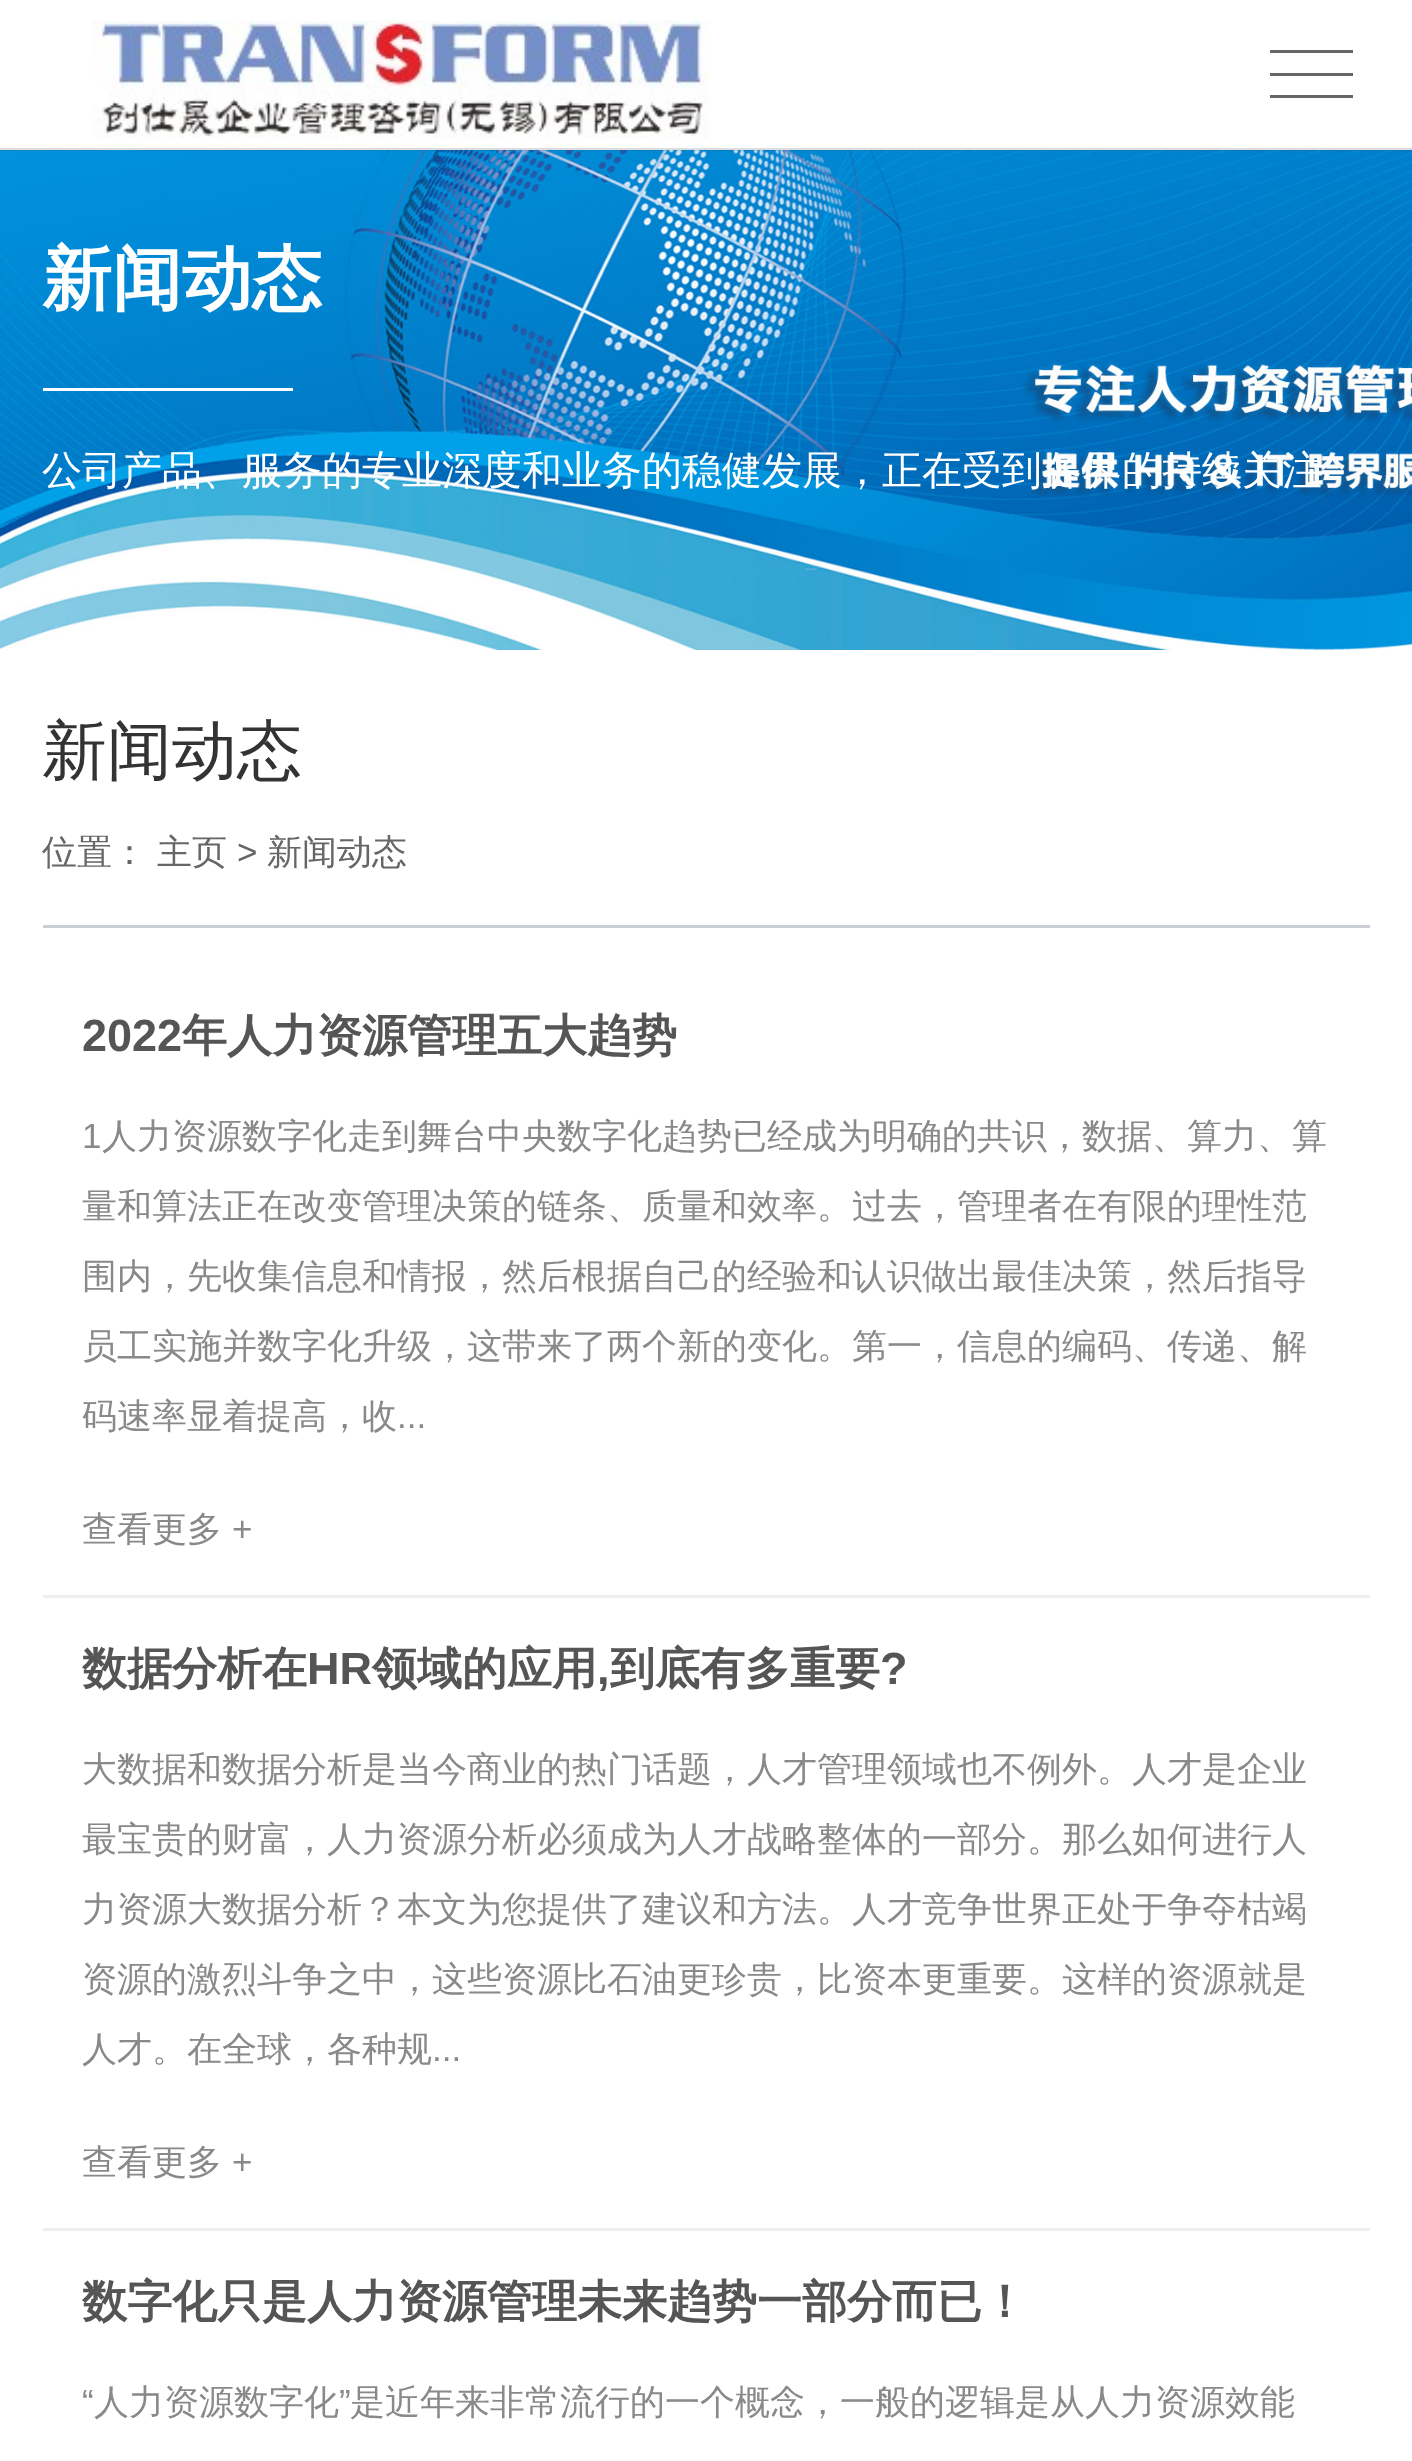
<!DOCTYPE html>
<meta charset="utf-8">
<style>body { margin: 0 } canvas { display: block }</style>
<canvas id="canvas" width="1412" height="2461"></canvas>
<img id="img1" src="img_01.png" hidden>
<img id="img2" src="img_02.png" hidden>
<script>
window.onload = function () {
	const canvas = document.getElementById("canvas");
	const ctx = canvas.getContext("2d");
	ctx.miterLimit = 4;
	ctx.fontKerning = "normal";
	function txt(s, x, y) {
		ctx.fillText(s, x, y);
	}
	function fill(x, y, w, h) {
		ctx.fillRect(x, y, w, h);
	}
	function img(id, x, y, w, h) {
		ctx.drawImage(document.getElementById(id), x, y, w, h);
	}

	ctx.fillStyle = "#FFFFFF";
	fill(0, 0, 1412, 2461);
	ctx.fillStyle = "#DDDDDD";
	fill(0, 148, 1412, 2);
	img("img1", 92, 20, 618, 118);
	ctx.fillStyle = "#666666";
	fill(1270, 50, 83, 3);
	fill(1270, 73, 83, 3);
	fill(1270, 95, 83, 3);
	img("img2", 0, 150, 1412, 500);
	ctx.fillStyle = "#FFFFFF";
	fill(43, 388, 250, 3);
	ctx.fillStyle = "#CACFD5";
	fill(43, 925, 1327, 3);
	ctx.fillStyle = "#EEEEEE";
	fill(43, 1595, 1327, 3);
	fill(43, 2228, 1327, 3);
	ctx.font = "bold 70px WenQuanYi Zen Hei";
	ctx.fillStyle = "#FFFFFF";
	txt("新闻动态", 42, 303);
	ctx.font = "500 40px WenQuanYi Zen Hei";
	txt("公司产品、服务的专业深度和业务的稳健发展，正在受到各界的持续关注", 42, 484);
	ctx.font = "500 65px WenQuanYi Zen Hei";
	ctx.fillStyle = "#333333";
	txt("新闻动态", 42, 773);
	ctx.font = "500 35px WenQuanYi Zen Hei";
	ctx.fillStyle = "#666666";
	txt("位置：", 42, 864);
	txt("主页", 157, 864);
	ctx.font = "35px Liberation Sans";
	txt(">", 237, 864);
	ctx.font = "500 35px WenQuanYi Zen Hei";
	txt("新闻动态", 267, 864);
	ctx.font = "bold 45px Liberation Sans";
	ctx.fillStyle = "#555555";
	txt("2022", 82, 1051);
	ctx.font = "bold 45px WenQuanYi Zen Hei";
	txt("年人力资源管理五大趋势", 182, 1051);
	ctx.font = "35px Liberation Sans";
	ctx.fillStyle = "#898989";
	txt("1", 82, 1148);
	ctx.font = "500 35px WenQuanYi Zen Hei";
	txt("人力资源数字化走到舞台中央数字化趋势已经成为明确的共识，数据、算力、算", 102, 1148);
	txt("量和算法正在改变管理决策的链条、质量和效率。过去，管理者在有限的理性范", 82, 1218);
	txt("围内，先收集信息和情报，然后根据自己的经验和认识做出最佳决策，然后指导", 82, 1288);
	txt("员工实施并数字化升级，这带来了两个新的变化。第一，信息的编码、传递、解", 82, 1358);
	txt("码速率显着提高，收", 82, 1428);
	ctx.font = "35px Liberation Sans";
	txt("...", 397, 1428);
	ctx.font = "500 35px WenQuanYi Zen Hei";
	txt("查看更多", 82, 1541);
	ctx.font = "35px Liberation Sans";
	txt("+", 232, 1541);
	ctx.font = "bold 45px WenQuanYi Zen Hei";
	ctx.fillStyle = "#555555";
	txt("数据分析在", 82, 1684);
	ctx.font = "bold 45px Liberation Sans";
	txt("HR", 307, 1684);
	ctx.font = "bold 45px WenQuanYi Zen Hei";
	txt("领域的应用", 372, 1684);
	ctx.font = "bold 45px Liberation Sans";
	txt(",", 597, 1684);
	ctx.font = "bold 45px WenQuanYi Zen Hei";
	txt("到底有多重要", 610, 1684);
	ctx.font = "bold 45px Liberation Sans";
	txt("?", 880, 1684);
	ctx.font = "500 35px WenQuanYi Zen Hei";
	ctx.fillStyle = "#898989";
	txt("大数据和数据分析是当今商业的热门话题，人才管理领域也不例外。人才是企业", 82, 1781);
	txt("最宝贵的财富，人力资源分析必须成为人才战略整体的一部分。那么如何进行人", 82, 1851);
	txt("力资源大数据分析？本文为您提供了建议和方法。人才竞争世界正处于争夺枯竭", 82, 1921);
	txt("资源的激烈斗争之中，这些资源比石油更珍贵，比资本更重要。这样的资源就是", 82, 1991);
	txt("人才。在全球，各种规", 82, 2061);
	ctx.font = "35px Liberation Sans";
	txt("...", 432, 2061);
	ctx.font = "500 35px WenQuanYi Zen Hei";
	txt("查看更多", 82, 2174);
	ctx.font = "35px Liberation Sans";
	txt("+", 232, 2174);
	ctx.font = "bold 45px WenQuanYi Zen Hei";
	ctx.fillStyle = "#555555";
	txt("数字化只是人力资源管理未来趋势一部分而已！", 82, 2317);
	ctx.font = "35px Liberation Sans";
	ctx.fillStyle = "#898989";
	txt("“", 82, 2414);
	ctx.font = "500 35px WenQuanYi Zen Hei";
	txt("人力资源数字化", 94, 2414);
	ctx.font = "35px Liberation Sans";
	txt("”", 339, 2414);
	ctx.font = "500 35px WenQuanYi Zen Hei";
	txt("是近年来非常流行的一个概念，一般的逻辑是从人力资源效能", 350, 2414);
};
</script>
